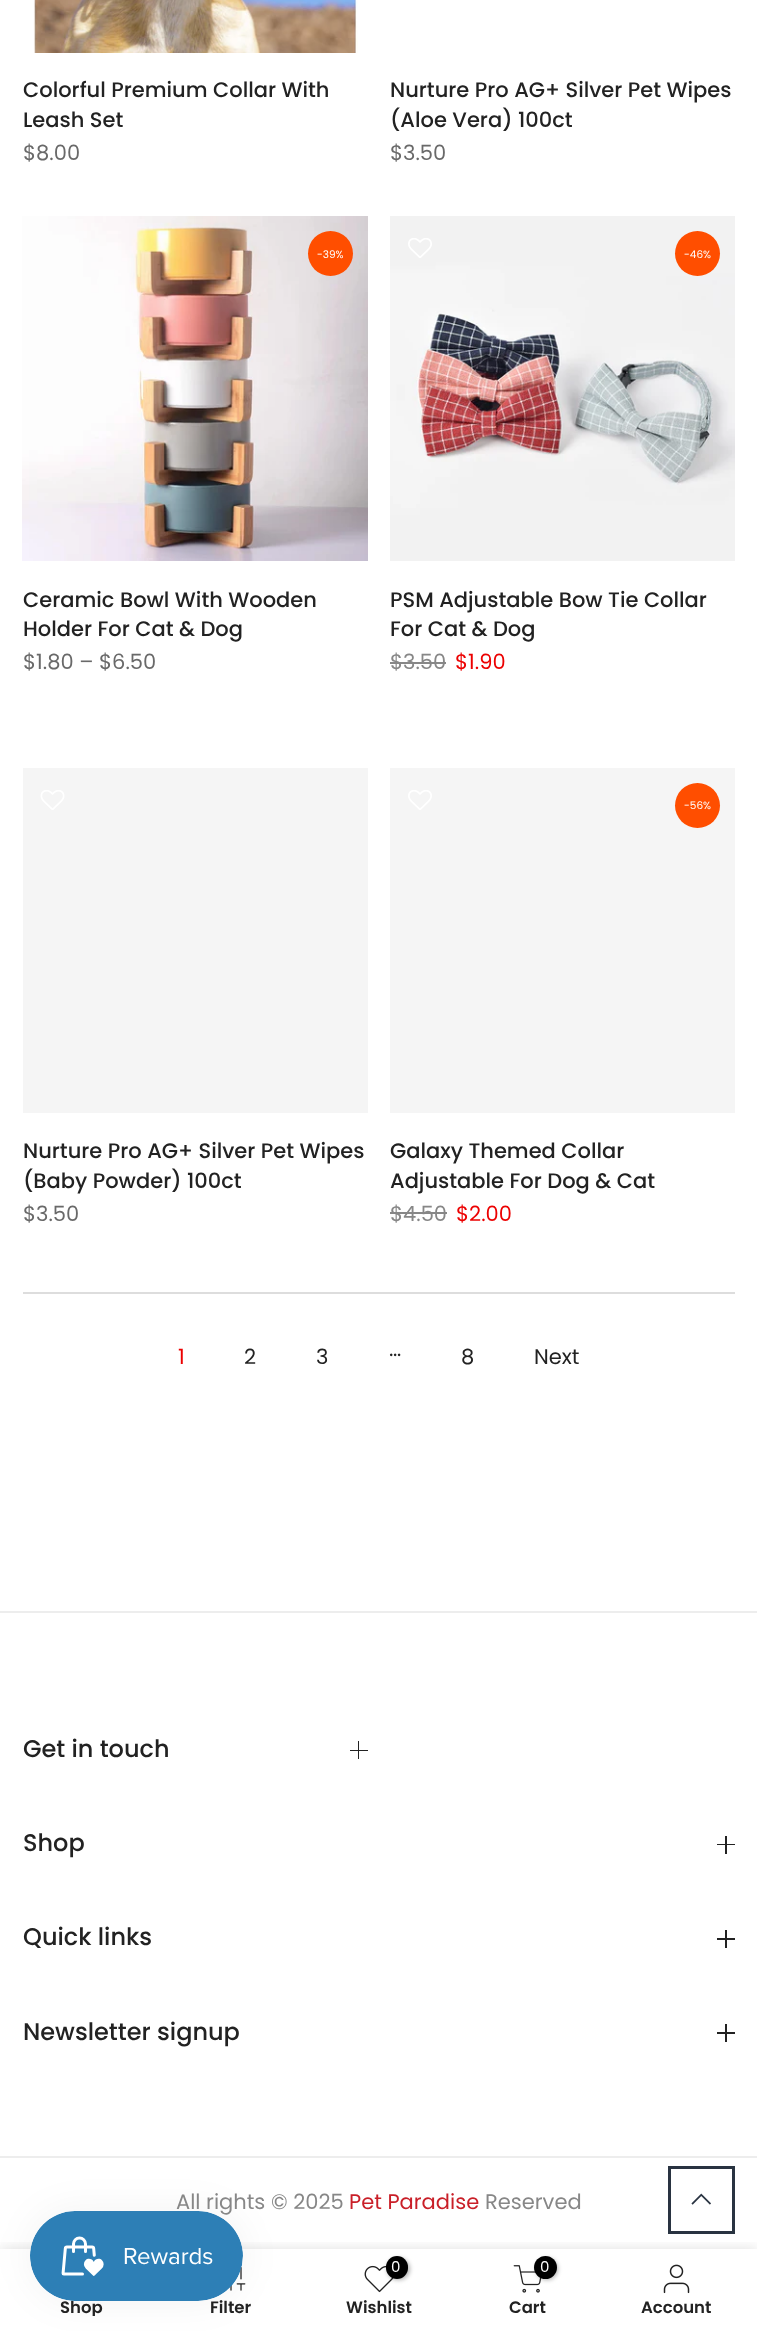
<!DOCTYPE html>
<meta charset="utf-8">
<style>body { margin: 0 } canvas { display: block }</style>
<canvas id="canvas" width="757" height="2331"></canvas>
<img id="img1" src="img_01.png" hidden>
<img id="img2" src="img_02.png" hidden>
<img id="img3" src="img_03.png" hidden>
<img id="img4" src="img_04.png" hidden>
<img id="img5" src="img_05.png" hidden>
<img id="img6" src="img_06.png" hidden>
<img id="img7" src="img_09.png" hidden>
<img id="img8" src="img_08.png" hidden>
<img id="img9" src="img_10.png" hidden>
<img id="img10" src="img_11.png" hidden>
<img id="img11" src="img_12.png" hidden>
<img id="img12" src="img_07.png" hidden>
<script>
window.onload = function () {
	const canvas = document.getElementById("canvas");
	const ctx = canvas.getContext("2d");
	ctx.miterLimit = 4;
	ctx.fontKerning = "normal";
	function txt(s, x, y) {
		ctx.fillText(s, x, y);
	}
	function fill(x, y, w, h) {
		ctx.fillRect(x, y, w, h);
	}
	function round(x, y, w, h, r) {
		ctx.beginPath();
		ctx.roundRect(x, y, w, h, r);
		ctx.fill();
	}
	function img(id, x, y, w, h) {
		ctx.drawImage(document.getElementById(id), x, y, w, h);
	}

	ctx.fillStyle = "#FFFFFF";
	fill(0, 0, 757, 2331);
	img("img1", 33, 0, 325, 53);
	img("img2", 22, 216, 346, 345);
	ctx.fillStyle = "#FF4E00";
	ctx.beginPath();
	ctx.arc(330.5, 253.5, 22.5, 0, Math.PI * 2);
	ctx.fill();
	img("img3", 390, 216, 345, 345);
	img("img4", 408, 238, 24, 20);
	ctx.beginPath();
	ctx.arc(697.5, 253.5, 22.5, 0, Math.PI * 2);
	ctx.fill();
	ctx.fillStyle = "#878787";
	fill(390, 662, 56, 2);
	ctx.fillStyle = "#F5F5F5";
	fill(23, 768, 345, 345);
	img("img5", 40, 790, 25, 20);
	fill(390, 768, 345, 345);
	img("img6", 408, 790, 24, 20);
	ctx.fillStyle = "#FF4E00";
	ctx.beginPath();
	ctx.arc(697.5, 805.5, 22.5, 0, Math.PI * 2);
	ctx.fill();
	ctx.fillStyle = "#878787";
	fill(390, 1212, 57, 2);
	ctx.fillStyle = "#DDDDDD";
	fill(23, 1292, 712, 2);
	ctx.fillStyle = "#EDEDED";
	fill(0, 1611, 757, 2);
	fill(0, 2156, 757, 2);
	ctx.fillStyle = "#222222";
	fill(358, 1741, 1, 18);
	fill(350, 1750, 18, 1);
	fill(725, 1836, 2, 18);
	fill(717, 1844, 18, 1);
	fill(725, 1930, 2, 18);
	fill(717, 1938, 18, 2);
	fill(725, 2024, 2, 18);
	fill(717, 2032, 18, 2);
	ctx.strokeStyle = "#293341";
	ctx.lineWidth = 3;
	ctx.strokeRect(669.5, 2167.5, 64, 65);
	ctx.save();
	ctx.beginPath();
	ctx.rect(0, 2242, 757, 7);
	ctx.clip();
	ctx.fillStyle = "rgba(0, 0, 0, 0.12)";
	ctx.filter = "blur(7px)";
	ctx.beginPath();
	ctx.rect(0, 2249, 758, 82);
	ctx.fill();
	ctx.filter = "none";
	ctx.restore();
	img("img7", 230, 2267, 16, 24);
	ctx.fillStyle = "rgba(0, 0, 0, 0.05)";
	ctx.filter = "blur(19px)";
	ctx.beginPath();
	ctx.roundRect(30, 2211, 213, 90, 45);
	ctx.fill();
	ctx.filter = "none";
	img("img8", 691, 2193, 20, 12);
	img("img9", 364, 2265, 30, 28);
	ctx.fillStyle = "rgba(0, 0, 0, 0.3)";
	ctx.filter = "blur(2px)";
	ctx.beginPath();
	ctx.roundRect(387, 2258, 23, 22, 11);
	ctx.fill();
	ctx.filter = "none";
	ctx.fillStyle = "#000000";
	round(386, 2256, 22, 23, 11);
	img("img10", 513, 2265, 29, 28);
	ctx.fillStyle = "rgba(0, 0, 0, 0.3)";
	ctx.filter = "blur(2px)";
	ctx.beginPath();
	ctx.roundRect(536, 2258, 22, 22, 11);
	ctx.fill();
	ctx.filter = "none";
	ctx.fillStyle = "#000000";
	ctx.beginPath();
	ctx.arc(545.5, 2267.5, 11.5, 0, Math.PI * 2);
	ctx.fill();
	img("img11", 663, 2264, 27, 30);
	ctx.font = "500 21px Poppins";
	ctx.fillStyle = "#222222";
	txt("Colorful Premium Collar With", 23, 97);
	txt("Leash Set", 23, 127);
	ctx.font = "21px Poppins";
	ctx.fillStyle = "#696969";
	txt("$8.00", 23, 160);
	ctx.font = "500 21px Poppins";
	ctx.fillStyle = "#222222";
	txt("Nurture Pro AG+ Silver Pet Wipes", 390, 97);
	txt("(Aloe Vera) 100ct", 390, 127);
	ctx.font = "21px Poppins";
	ctx.fillStyle = "#696969";
	txt("$3.50", 390, 160);
	ctx.font = "10.5px Poppins";
	ctx.fillStyle = "#FFFFFF";
	txt("-39%", 317, 258);
	ctx.font = "500 21px Poppins";
	ctx.fillStyle = "#222222";
	txt("Ceramic Bowl With Wooden", 23, 607);
	txt("Holder For Cat & Dog", 23, 636);
	ctx.font = "21px Poppins";
	ctx.fillStyle = "#696969";
	txt("$1.80 – $6.50", 23, 669);
	ctx.font = "10.5px Poppins";
	ctx.fillStyle = "#FFFFFF";
	txt("-46%", 684, 258);
	ctx.font = "500 21px Poppins";
	ctx.fillStyle = "#222222";
	txt("PSM Adjustable Bow Tie Collar", 390, 607);
	txt("For Cat & Dog", 390, 636);
	ctx.font = "21px Poppins";
	ctx.fillStyle = "#878787";
	txt("$3.50", 390, 669);
	ctx.fillStyle = "#EC0101";
	txt("$1.90", 455, 669);
	ctx.font = "500 21px Poppins";
	ctx.fillStyle = "#222222";
	txt("Nurture Pro AG+ Silver Pet Wipes", 23, 1158);
	txt("(Baby Powder) 100ct", 23, 1188);
	ctx.font = "21px Poppins";
	ctx.fillStyle = "#696969";
	txt("$3.50", 23, 1221);
	ctx.font = "10.5px Poppins";
	ctx.fillStyle = "#FFFFFF";
	txt("-56%", 684, 809);
	ctx.font = "500 21px Poppins";
	ctx.fillStyle = "#222222";
	txt("Galaxy Themed Collar", 390, 1158);
	txt("Adjustable For Dog & Cat", 390, 1188);
	ctx.font = "21px Poppins";
	ctx.fillStyle = "#878787";
	txt("$4.50", 390, 1221);
	ctx.fillStyle = "#EC0101";
	txt("$2.00", 456, 1221);
	txt("1", 178, 1364);
	ctx.fillStyle = "#222222";
	txt("2", 244, 1364);
	txt("3", 316, 1364);
	txt("…", 389, 1356);
	txt("8", 461, 1364);
	txt("Next", 534, 1364);
	ctx.font = "500 24px Poppins";
	txt("Get in touch", 23, 1757);
	txt("Shop", 23, 1851);
	txt("Quick links", 23, 1945);
	txt("Newsletter signup", 23, 2040);
	ctx.font = "21px Poppins";
	ctx.fillStyle = "#878787";
	txt("All rights © 2025", 176, 2209);
	ctx.fillStyle = "#C91F28";
	txt("Pet Paradise", 349, 2209);
	ctx.fillStyle = "#878787";
	txt("Reserved", 485, 2209);
	ctx.save();
	ctx.beginPath();
	ctx.rect(23, 2300, 118, 16);
	ctx.clip();
	ctx.font = "600 16.5px Poppins";
	ctx.fillStyle = "#222222";
	txt("Shop", 60, 2313);
	ctx.restore();
	ctx.font = "600 16.5px Poppins";
	ctx.fillStyle = "#222222";
	txt("Filter", 210, 2313);
	img("img12", 30, 2211, 213, 90);
	ctx.font = "15px Poppins";
	ctx.fillStyle = "#FFFFFF";
	txt("0", 391, 2272);
	ctx.font = "600 16.5px Poppins";
	ctx.fillStyle = "#222222";
	txt("Wishlist", 346, 2313);
	ctx.font = "15px Poppins";
	ctx.fillStyle = "#FFFFFF";
	txt("0", 540, 2272);
	ctx.font = "600 16.5px Poppins";
	ctx.fillStyle = "#222222";
	txt("Cart", 509, 2313);
	txt("Account", 641, 2313);
};
</script>
